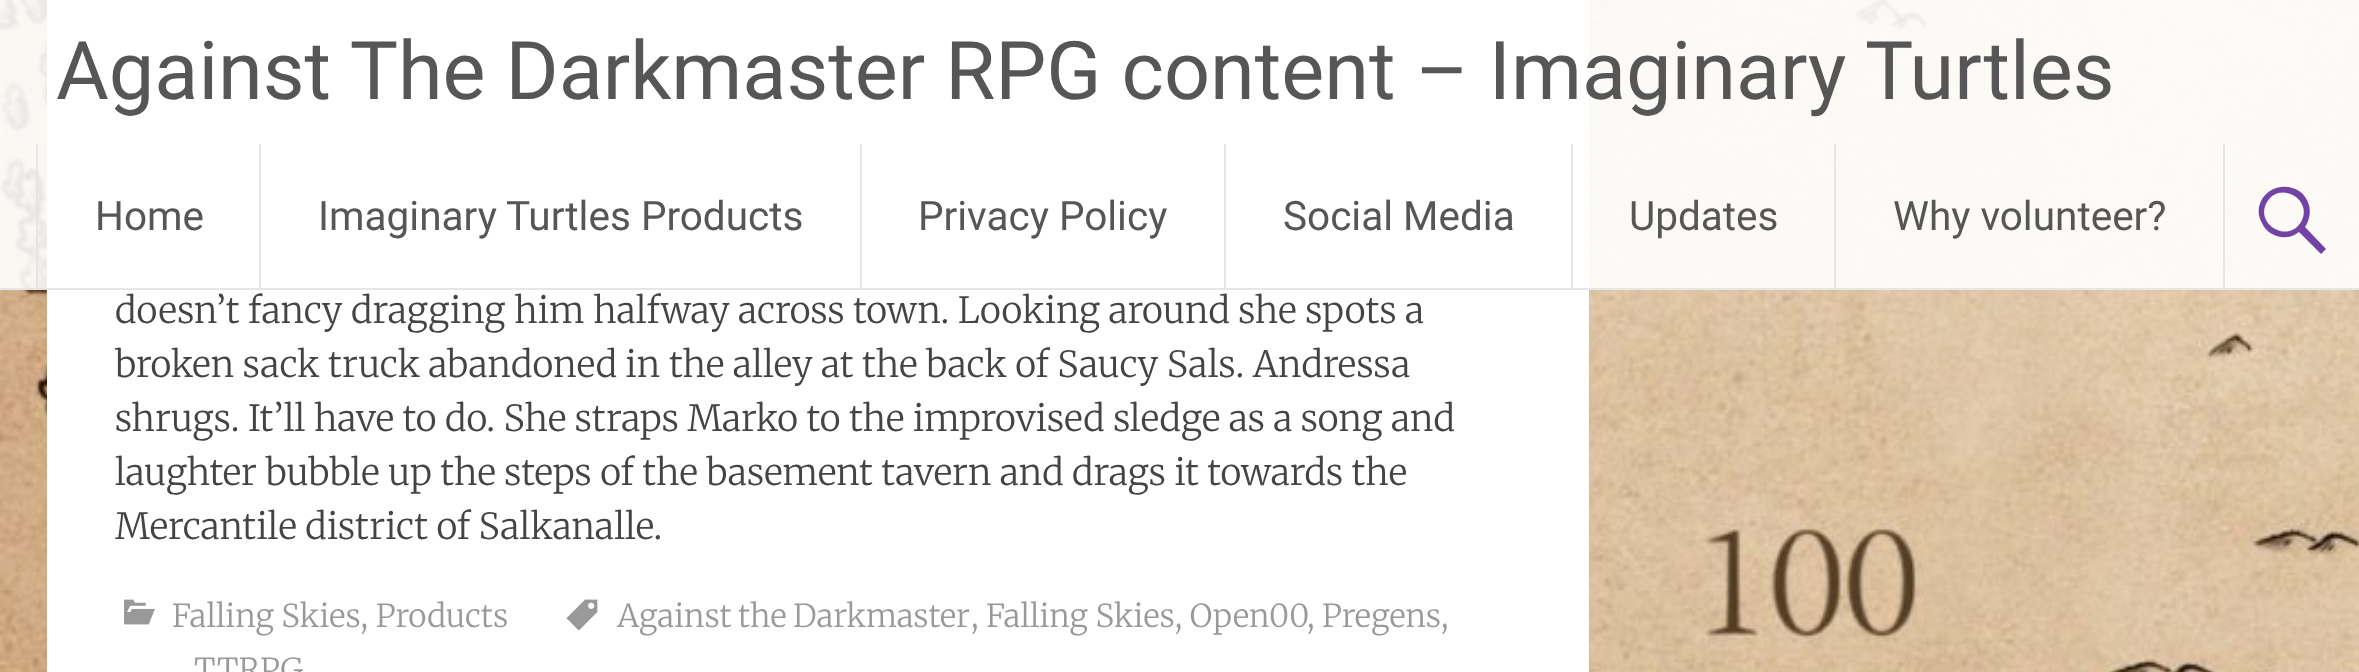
<!DOCTYPE html>
<meta charset="utf-8">
<style>body { margin: 0 } canvas { display: block }</style>
<canvas id="canvas" width="2359" height="672"></canvas>
<img id="img1" src="img_01.png" hidden>
<img id="img2" src="img_02.png" hidden>
<img id="img3" src="img_03.png" hidden>
<script>
window.onload = function () {
	const canvas = document.getElementById("canvas");
	const ctx = canvas.getContext("2d");
	ctx.miterLimit = 4;
	ctx.fontKerning = "normal";
	function txt(s, x, y) {
		ctx.fillText(s, x, y);
	}
	function fill(x, y, w, h) {
		ctx.fillRect(x, y, w, h);
	}
	function img(id, x, y, w, h) {
		ctx.drawImage(document.getElementById(id), x, y, w, h);
	}

	ctx.fillStyle = "#FFFFFF";
	fill(0, 0, 2359, 672);
	img("img1", 0, 0, 2359, 672);
	fill(47, 0, 1542, 672);
	ctx.fillStyle = "rgba(255, 255, 255, 0.9)";
	fill(0, 0, 2359, 290);
	ctx.fillStyle = "rgba(225, 228, 230, 0.9)";
	fill(0, 288, 2359, 2);
	fill(36, 144, 2, 144);
	fill(259, 144, 2, 144);
	fill(860, 144, 2, 144);
	fill(1224, 144, 2, 144);
	ctx.fillStyle = "#E4E7E9";
	fill(1571, 144, 2, 144);
	ctx.fillStyle = "#E4E6E8";
	fill(1834, 144, 2, 144);
	fill(2223, 144, 2, 144);
	ctx.fillStyle = "#7242A4";
	ctx.beginPath();
	ctx.moveTo(2326, 249);
	ctx.lineTo(2321, 254);
	ctx.lineTo(2299, 232);
	ctx.bezierCurveTo(2287, 242, 2268, 237, 2262, 223);
	ctx.bezierCurveTo(2259, 218, 2258, 213, 2259, 207);
	ctx.bezierCurveTo(2265, 181, 2302, 180, 2309, 205);
	ctx.bezierCurveTo(2311, 213, 2309, 221, 2305, 227);
	ctx.closePath();
	ctx.moveTo(2267, 202);
	ctx.bezierCurveTo(2254, 224, 2288, 244, 2301, 222);
	ctx.bezierCurveTo(2314, 200, 2280, 180, 2267, 202);
	ctx.closePath();
	ctx.fill();
	img("img2", 124, 599, 31, 26);
	img("img3", 566, 599, 32, 32);
	ctx.font = "81px Roboto";
	ctx.fillStyle = "#575656";
	txt("Against The Darkmaster RPG content – Imaginary Turtles", 56, 99);
	ctx.font = "40.5px Roboto";
	txt("Home", 95, 230);
	txt("Imaginary Turtles Products", 318, 230);
	txt("Privacy Policy", 918, 230);
	txt("Social Media", 1283, 230);
	txt("Updates", 1629, 230);
	txt("Why volunteer?", 1893, 230);
	ctx.font = "300 36px Merriweather";
	ctx.fillStyle = "#444444";
	txt("doesn’t fancy dragging him halfway across town. Looking around she spots a", 115, 323);
	txt("broken sack truck abandoned in the alley at the back of Saucy Sals. Andressa", 115, 377);
	txt("shrugs. It’ll have to do. She straps Marko to the improvised sledge as a song and", 115, 431);
	txt("laughter bubble up the steps of the basement tavern and drags it towards the", 115, 485);
	txt("Mercantile district of Salkanalle.", 115, 539);
	ctx.font = "300 31.5px Merriweather";
	ctx.fillStyle = "#999999";
	txt("Falling Skies, Products", 172, 627);
	ctx.wordSpacing = "-1px";
	txt("Against the Darkmaster", 617, 627);
	ctx.wordSpacing = "0px";
	txt(", Falling Skies, Open00", 971, 627);
	txt(", Pregens,", 1307, 627);
	txt("TTRPG", 194, 681);
};
</script>
